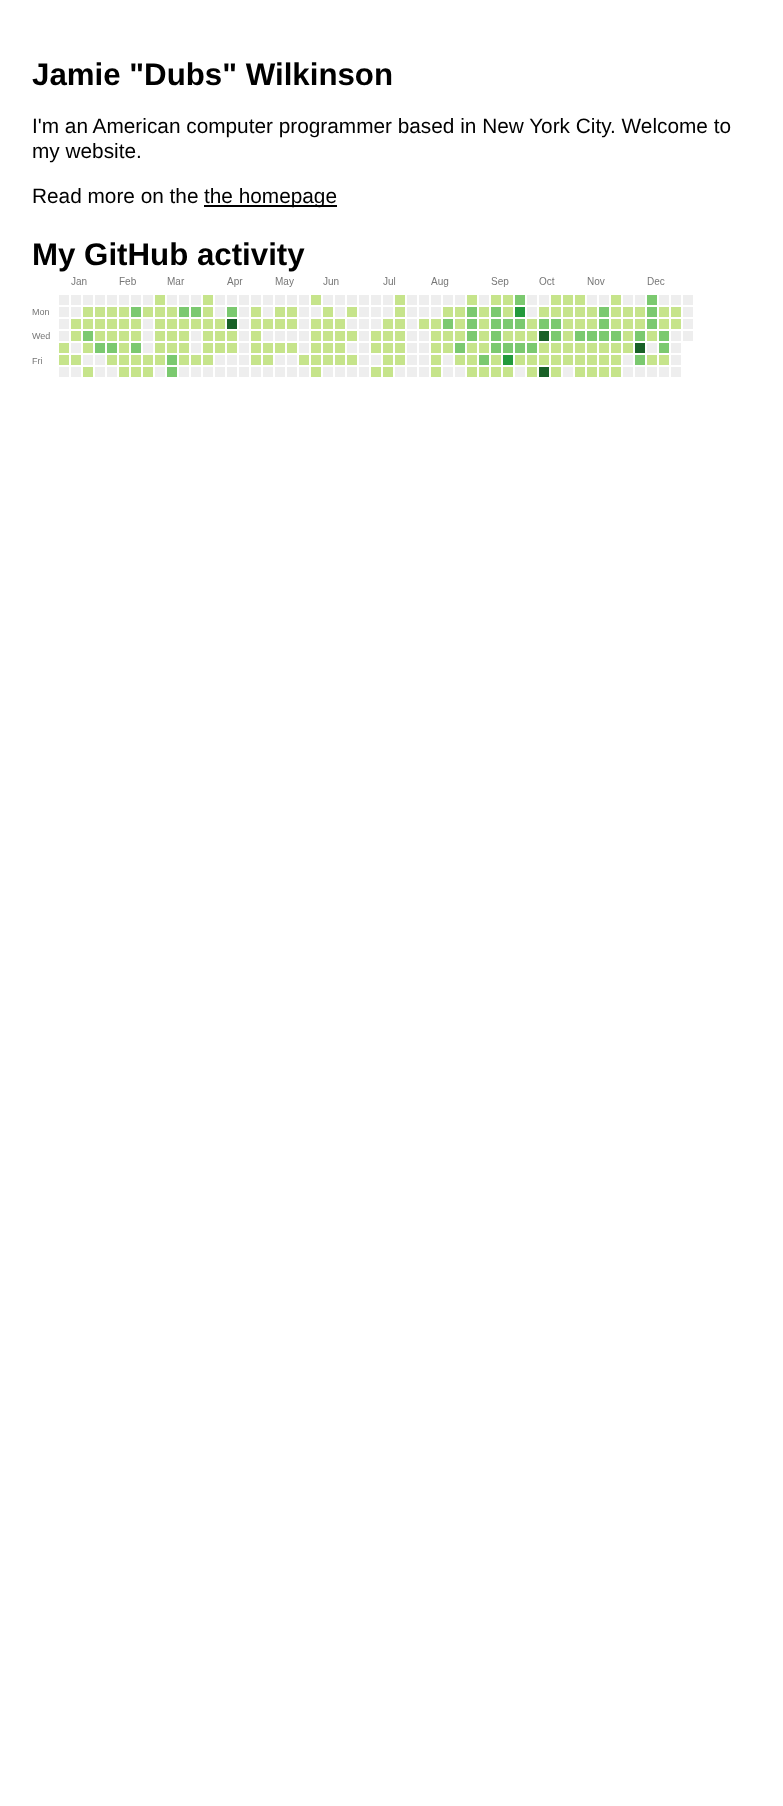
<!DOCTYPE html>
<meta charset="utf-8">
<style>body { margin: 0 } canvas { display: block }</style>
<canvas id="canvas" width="783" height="1806"></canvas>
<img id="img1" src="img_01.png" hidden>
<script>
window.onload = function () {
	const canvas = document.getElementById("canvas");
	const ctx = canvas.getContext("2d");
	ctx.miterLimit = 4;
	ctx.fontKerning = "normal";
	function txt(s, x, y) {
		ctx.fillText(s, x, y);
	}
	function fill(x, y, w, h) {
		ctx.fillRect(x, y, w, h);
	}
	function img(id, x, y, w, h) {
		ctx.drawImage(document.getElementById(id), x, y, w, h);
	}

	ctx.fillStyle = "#FFFFFF";
	fill(0, 0, 783, 1806);
	ctx.fillStyle = "#000000";
	fill(204, 205, 133, 2);
	img("img1", 32, 277, 661, 100);
	ctx.font = "bold 31.25px Liberation Sans";
	txt("Jamie \"Dubs\" Wilkinson", 32, 85);
	ctx.font = "20.8px Liberation Sans";
	txt("I'm an American computer programmer based in New York City. Welcome to", 32, 133);
	txt("my website.", 32, 158);
	txt("Read more on the", 32, 203);
	txt("the homepage", 204, 203);
	ctx.font = "bold 31.25px Liberation Sans";
	txt("My GitHub activity", 32, 265);
};
</script>
